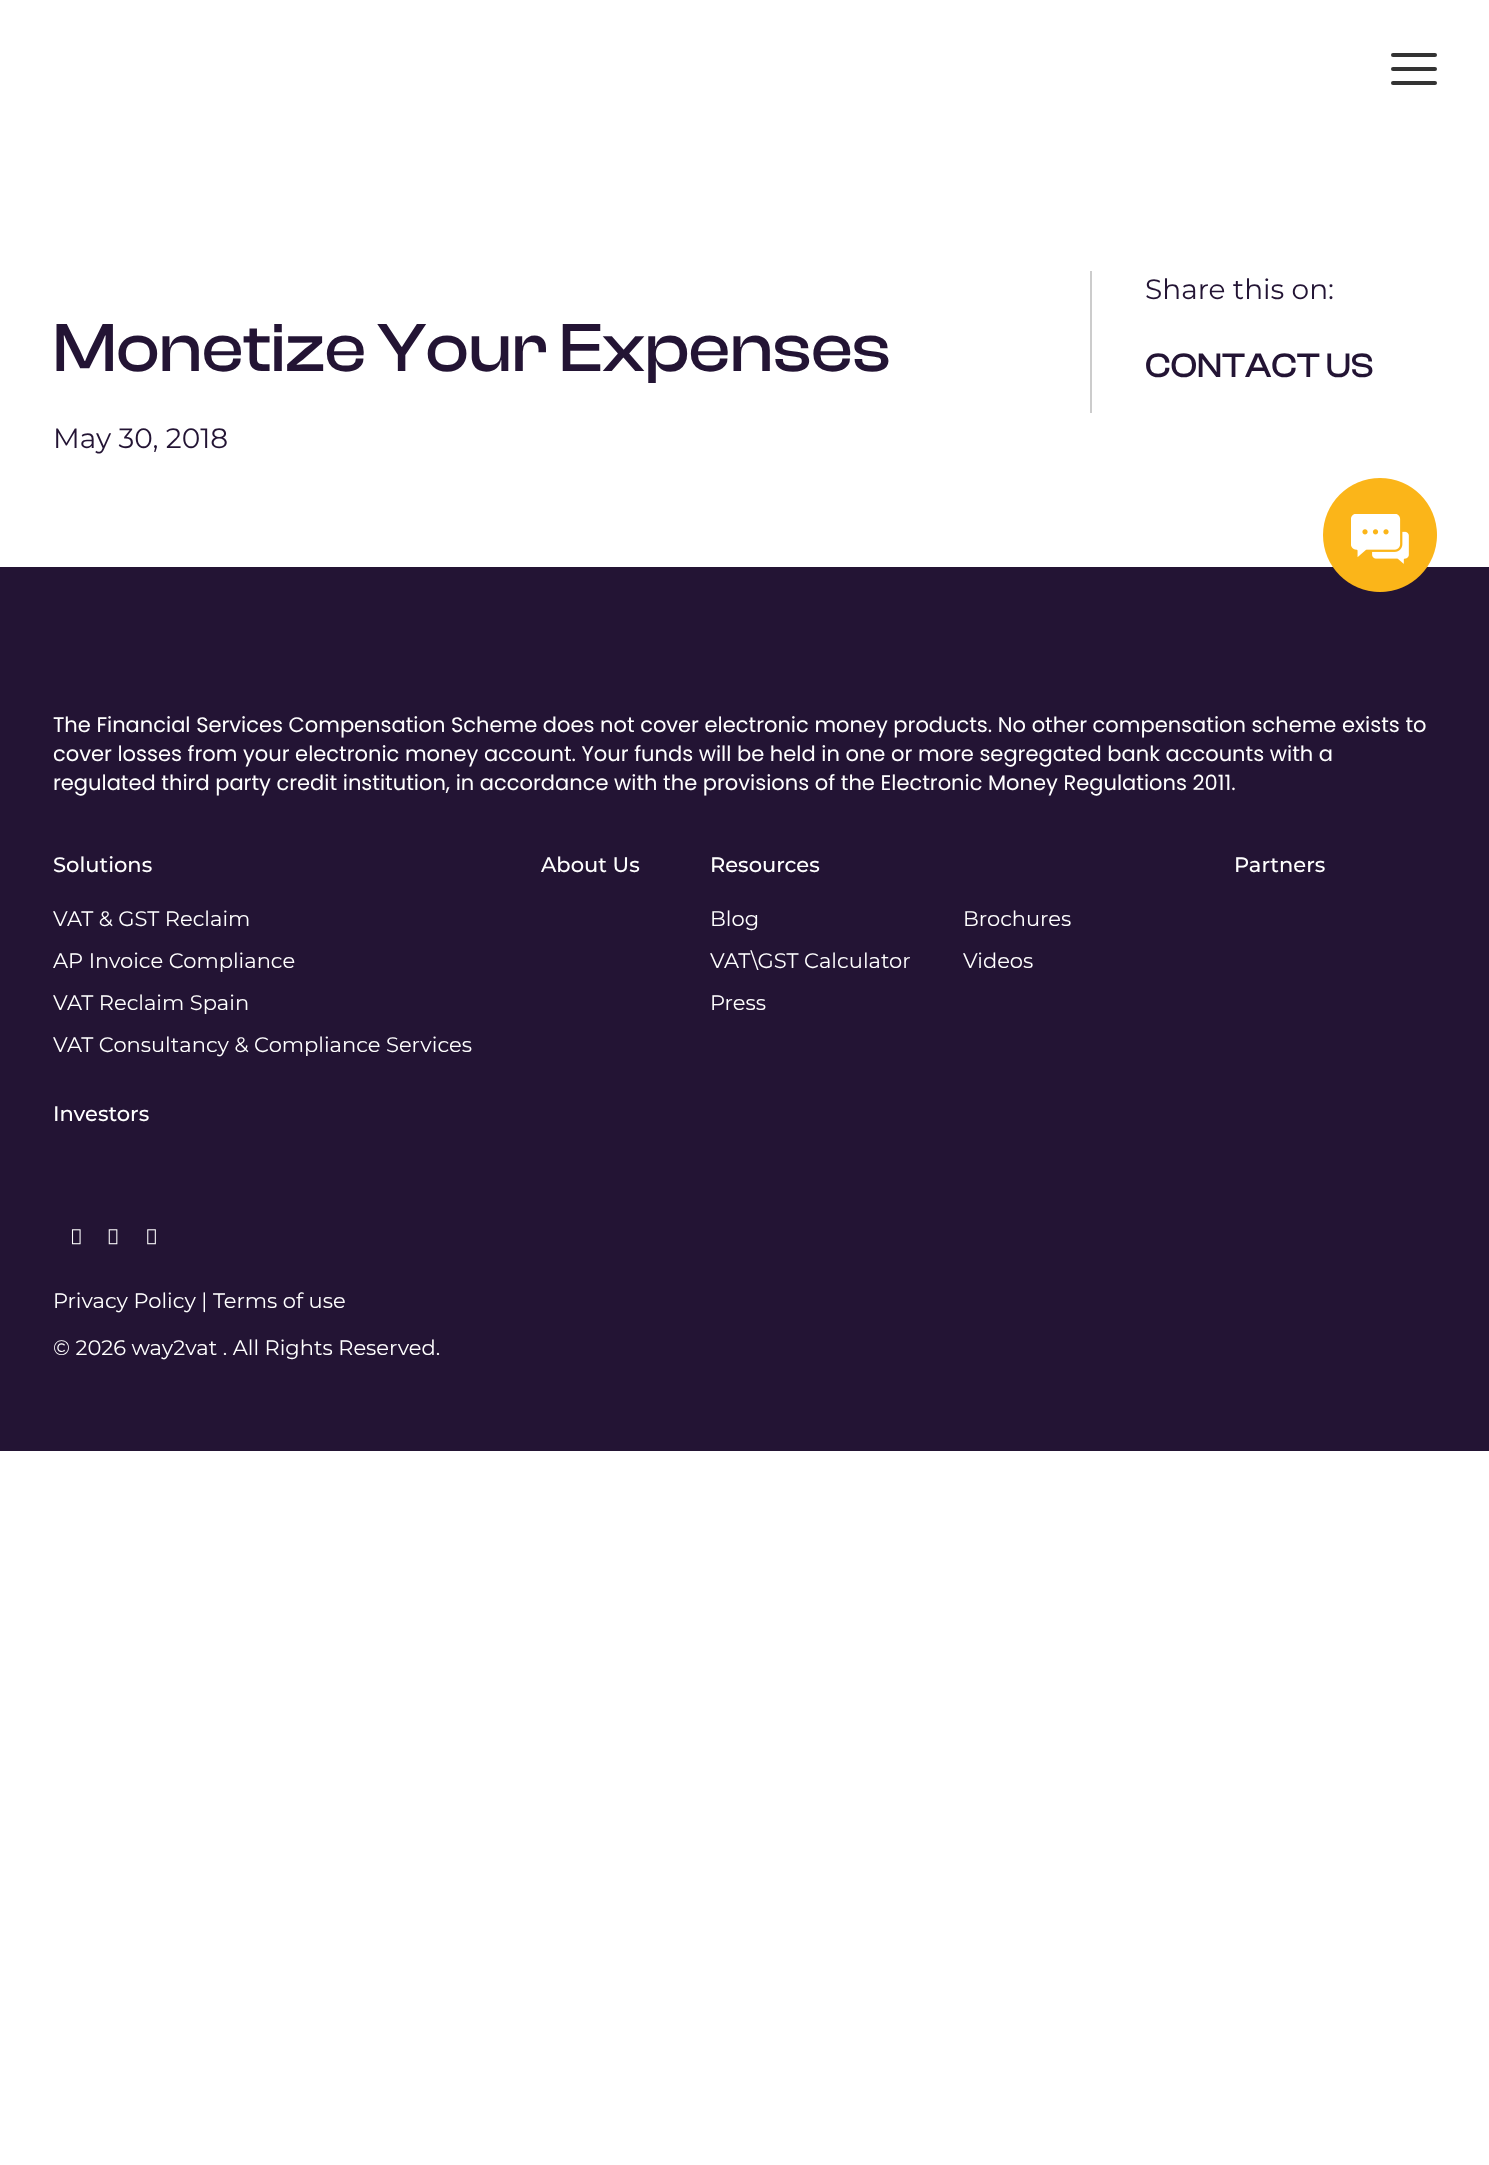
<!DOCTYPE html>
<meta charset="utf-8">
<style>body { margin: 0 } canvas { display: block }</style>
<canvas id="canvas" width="1489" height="2165"></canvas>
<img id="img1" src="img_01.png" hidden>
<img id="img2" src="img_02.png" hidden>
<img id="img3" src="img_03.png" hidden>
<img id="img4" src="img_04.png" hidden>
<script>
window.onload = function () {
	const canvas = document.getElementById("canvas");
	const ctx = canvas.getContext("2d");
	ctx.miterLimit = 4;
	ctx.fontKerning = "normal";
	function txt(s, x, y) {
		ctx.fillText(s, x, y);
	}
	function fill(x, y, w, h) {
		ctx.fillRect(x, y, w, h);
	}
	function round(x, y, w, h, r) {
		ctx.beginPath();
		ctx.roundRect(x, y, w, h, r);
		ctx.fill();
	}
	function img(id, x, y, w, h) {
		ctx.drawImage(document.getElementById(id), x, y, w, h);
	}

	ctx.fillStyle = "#FFFFFF";
	fill(0, 0, 1489, 2165);
	ctx.fillStyle = "#333333";
	round(1391, 53, 46, 4, 2);
	round(1391, 67, 46, 4, 2);
	round(1391, 81, 46, 4, 2);
	ctx.fillStyle = "#CCCCCC";
	fill(1090, 271, 2, 142);
	ctx.fillStyle = "#231434";
	fill(0, 567, 1489, 884);
	img("img1", 1323, 478, 114, 114);
	img("img2", 71, 1229, 10, 16);
	img("img3", 108, 1229, 10, 16);
	img("img4", 147, 1229, 9, 16);
	ctx.font = "500 70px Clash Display";
	txt("Monetize Your Expenses", 53, 371);
	ctx.font = "28px Montserrat";
	txt("May 30, 2018", 53, 448);
	txt("Share this on:", 1145, 299);
	ctx.font = "500 35px Clash Display";
	txt("CONTACT US", 1145, 377);
	ctx.font = "21px Poppins";
	ctx.fillStyle = "#FFFFFF";
	txt("The Financial Services Compensation Scheme does not cover electronic money products. No other compensation scheme exists to", 53, 732);
	txt("cover losses from your electronic money account. Your funds will be held in one or more segregated bank accounts with a", 53, 761);
	txt("regulated third party credit institution, in accordance with the provisions of the Electronic Money Regulations 2011.", 53, 790);
	ctx.font = "500 21px Montserrat";
	txt("Solutions", 53, 872);
	ctx.font = "21px Montserrat";
	txt("VAT & GST Reclaim", 53, 926);
	txt("AP Invoice Compliance", 53, 968);
	txt("VAT Reclaim Spain", 53, 1010);
	txt("VAT Consultancy & Compliance Services", 53, 1052);
	ctx.font = "500 21px Montserrat";
	txt("About Us", 541, 872);
	txt("Resources", 710, 872);
	ctx.font = "21px Montserrat";
	txt("Blog", 710, 926);
	txt("Brochures", 963, 926);
	txt("VAT\\GST Calculator", 710, 968);
	txt("Videos", 963, 968);
	txt("Press", 710, 1010);
	ctx.font = "500 21px Montserrat";
	txt("Partners", 1234, 872);
	txt("Investors", 53, 1121);
	ctx.font = "21px Montserrat";
	txt("Privacy Policy | Terms of use", 53, 1308);
	txt("© 2026 way2vat . All Rights Reserved.", 53, 1355);
};
</script>
